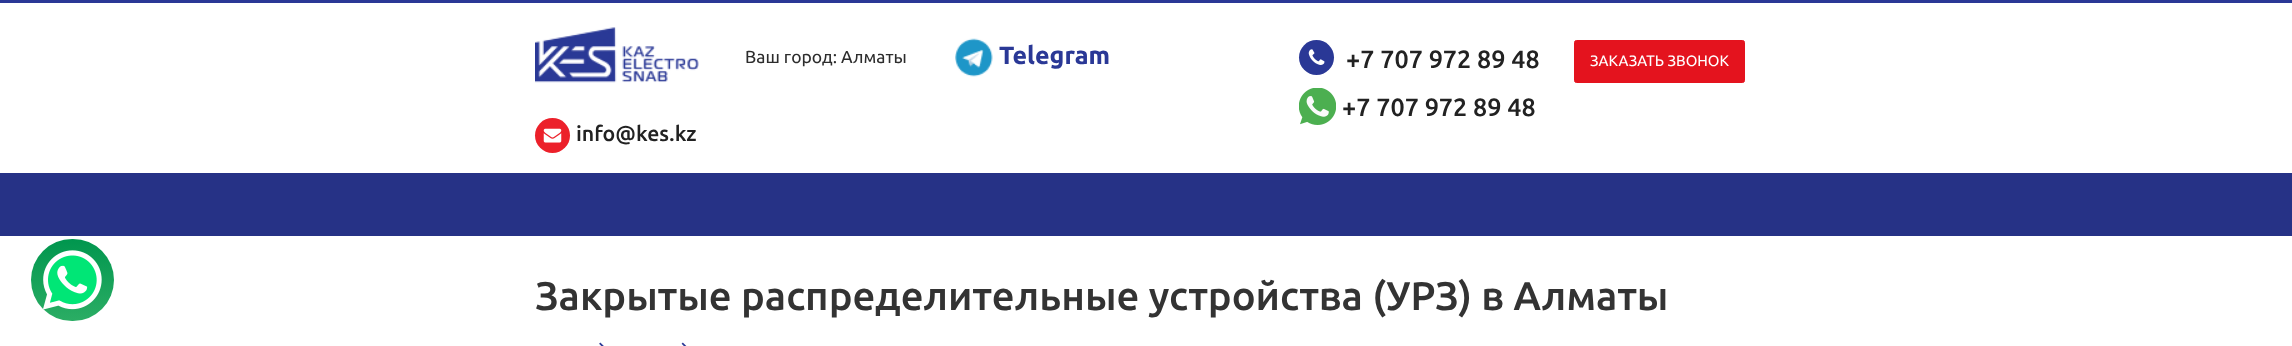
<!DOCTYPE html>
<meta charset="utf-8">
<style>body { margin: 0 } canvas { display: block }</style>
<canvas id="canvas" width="2292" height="346"></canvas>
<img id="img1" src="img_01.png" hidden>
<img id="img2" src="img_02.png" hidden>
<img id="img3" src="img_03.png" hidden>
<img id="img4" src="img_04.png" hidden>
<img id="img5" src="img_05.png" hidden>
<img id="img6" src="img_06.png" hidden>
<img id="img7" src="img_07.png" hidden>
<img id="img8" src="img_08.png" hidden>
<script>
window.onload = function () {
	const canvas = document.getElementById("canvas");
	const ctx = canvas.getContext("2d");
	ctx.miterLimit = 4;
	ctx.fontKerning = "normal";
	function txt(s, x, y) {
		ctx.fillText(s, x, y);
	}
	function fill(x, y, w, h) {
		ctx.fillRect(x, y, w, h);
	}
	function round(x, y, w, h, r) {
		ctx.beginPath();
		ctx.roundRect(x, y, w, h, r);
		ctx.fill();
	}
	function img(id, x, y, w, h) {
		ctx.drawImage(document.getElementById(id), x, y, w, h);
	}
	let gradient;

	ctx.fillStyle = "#FFFFFF";
	fill(0, 0, 2292, 346);
	ctx.fillStyle = "#2A3896";
	fill(0, 0, 2292, 3);
	img("img1", 955, 38, 38, 39);
	ctx.beginPath();
	ctx.arc(1316.5, 57.5, 17.5, 0, Math.PI * 2);
	ctx.fill();
	img("img2", 1308, 49, 17, 16);
	img("img3", 1299, 88, 37, 37);
	ctx.fillStyle = "#E4131E";
	ctx.beginPath();
	ctx.roundRect(1574.5, 40.5, 170, 42, 2);
	ctx.fill();
	ctx.strokeStyle = "#E4131E";
	ctx.stroke();
	img("img4", 535, 27, 164, 56);
	ctx.fillStyle = "#EC202A";
	ctx.beginPath();
	ctx.arc(552.5, 135.5, 17.5, 0, Math.PI * 2);
	ctx.fill();
	img("img5", 543, 128, 19, 15);
	ctx.fillStyle = "#263286";
	fill(0, 173, 2292, 63);
	gradient = ctx.createLinearGradient(72, 239, 73, 321);
	gradient.addColorStop(0, "#00964E");
	gradient.addColorStop(1, "#2BAD64");
	ctx.fillStyle = gradient;
	round(31, 239, 83, 82, 41);
	img("img6", 43, 250, 59, 60);
	img("img7", 599, 342, 5, 4);
	img("img8", 681, 342, 6, 4);
	ctx.font = "17.5px Ubuntu";
	ctx.fillStyle = "#2D2D2D";
	txt("Ваш город: Алматы", 745, 63);
	ctx.font = "bold 25px Ubuntu";
	ctx.fillStyle = "#2A3896";
	txt("Telegram", 999, 64);
	ctx.font = "500 25px Ubuntu";
	ctx.fillStyle = "#222222";
	txt("+7 707 972 89 48", 1346, 68);
	txt("+7 707 972 89 48", 1342, 116);
	ctx.font = "15px Ubuntu";
	ctx.fillStyle = "#FFFFFF";
	txt("ЗАКАЗАТЬ ЗВОНОК", 1590, 66);
	ctx.font = "500 21.25px Ubuntu";
	ctx.fillStyle = "#222222";
	txt("info@kes.kz", 576, 141);
	ctx.font = "500 40px Ubuntu";
	ctx.fillStyle = "#333333";
	txt("Закрытые распределительные устройства (УРЗ) в Алматы", 535, 310);
};
</script>
